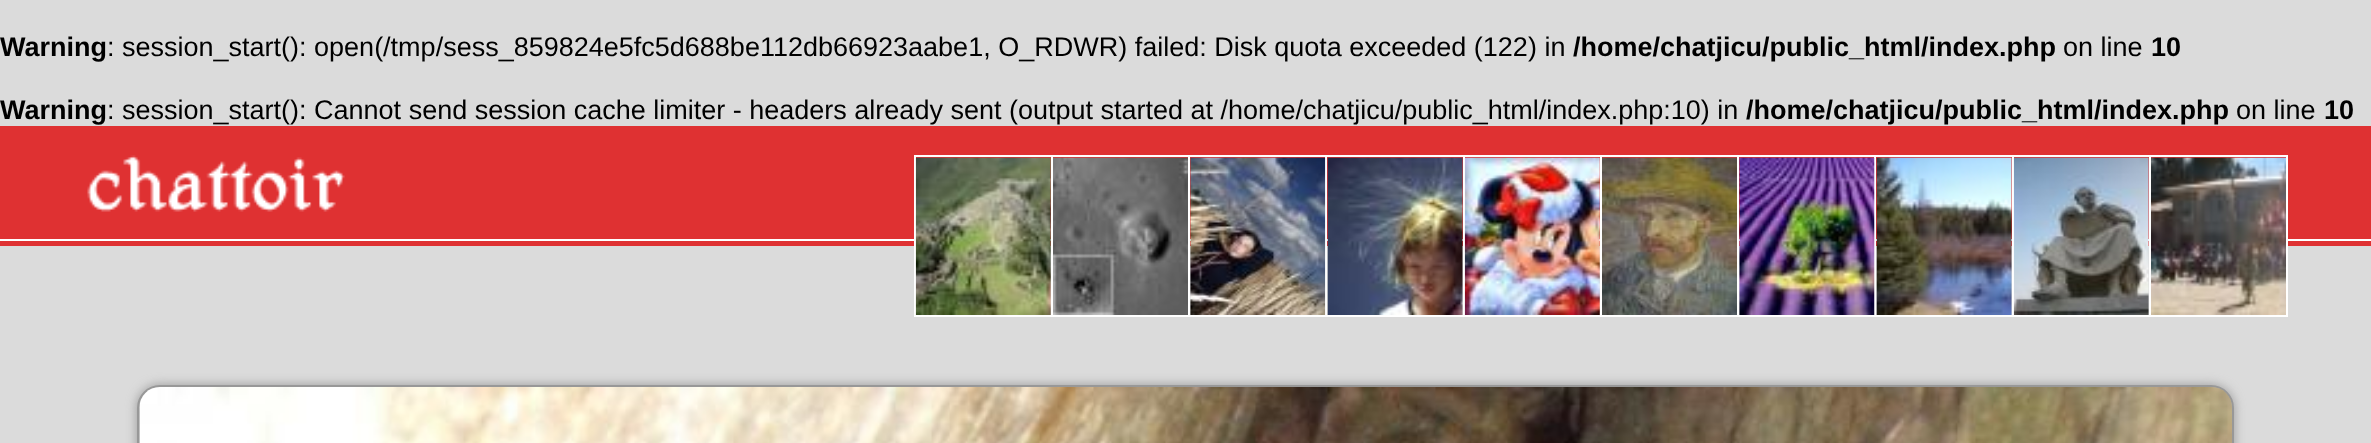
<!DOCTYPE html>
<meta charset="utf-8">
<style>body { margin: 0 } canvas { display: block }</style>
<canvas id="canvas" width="2371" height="443"></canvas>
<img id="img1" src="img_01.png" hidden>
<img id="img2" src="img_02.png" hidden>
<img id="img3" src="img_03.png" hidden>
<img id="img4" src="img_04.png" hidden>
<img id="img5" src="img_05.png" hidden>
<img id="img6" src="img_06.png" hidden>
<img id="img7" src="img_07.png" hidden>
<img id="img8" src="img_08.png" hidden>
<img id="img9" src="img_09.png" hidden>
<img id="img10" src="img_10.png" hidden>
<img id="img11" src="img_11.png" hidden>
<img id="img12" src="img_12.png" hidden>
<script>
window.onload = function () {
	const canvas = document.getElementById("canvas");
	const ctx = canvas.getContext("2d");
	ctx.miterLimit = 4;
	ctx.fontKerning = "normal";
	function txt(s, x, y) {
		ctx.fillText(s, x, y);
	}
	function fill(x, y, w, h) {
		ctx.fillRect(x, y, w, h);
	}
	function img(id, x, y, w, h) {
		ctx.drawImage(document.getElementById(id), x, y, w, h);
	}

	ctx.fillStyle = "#DBDBDB";
	fill(0, 0, 2371, 443);
	ctx.fillStyle = "#DF3132";
	fill(0, 126, 2371, 113);
	ctx.fillStyle = "#FFFFFF";
	fill(0, 239, 2371, 2);
	img("img1", 87, 155, 258, 57);
	ctx.fillStyle = "#DF3132";
	fill(0, 241, 2371, 5);
	ctx.fillStyle = "#FFFFFF";
	fill(2286, 155, 2, 162);
	fill(914, 155, 1372, 2);
	fill(914, 315, 1372, 2);
	fill(2149, 155, 2, 162);
	img("img2", 2151, 157, 135, 158);
	fill(914, 155, 2, 162);
	img("img3", 915, 157, 136, 158);
	fill(1051, 155, 2, 162);
	img("img4", 1053, 157, 135, 158);
	fill(1188, 155, 2, 162);
	fill(1325, 155, 2, 162);
	img("img5", 1190, 157, 136, 158);
	img("img6", 1327, 157, 136, 158);
	fill(1463, 155, 2, 162);
	img("img7", 1464, 157, 136, 158);
	fill(1600, 155, 2, 162);
	img("img8", 1602, 157, 135, 158);
	fill(1737, 155, 2, 162);
	fill(1874, 155, 2, 162);
	img("img9", 1739, 157, 136, 158);
	img("img10", 1876, 157, 136, 158);
	fill(2012, 155, 2, 162);
	img("img11", 2013, 157, 136, 158);
	ctx.fillStyle = "#989898";
	ctx.filter = "blur(5.5px)";
	ctx.beginPath();
	ctx.roundRect(137, 385, 2097, 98, 23);
	ctx.fill();
	ctx.filter = "none";
	ctx.beginPath();
	ctx.roundRect(138, 386, 2095, 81, 22);
	ctx.strokeStyle = "#989898";
	ctx.lineWidth = 2;
	ctx.stroke();
	img("img12", 139, 387, 2093, 56);
	ctx.font = "bold 27px Liberation Sans";
	ctx.fillStyle = "#000000";
	txt("Warning", 0, 56);
	ctx.font = "27px Liberation Sans";
	txt(": session_start(): open(/tmp/sess_859824e5fc5d688be112db66923aabe1, O_RDWR) failed: Disk quota exceeded (122) in", 107, 56);
	ctx.font = "bold 27px Liberation Sans";
	txt("/home/chatjicu/public_html/index.php", 1573, 56);
	ctx.font = "27px Liberation Sans";
	txt("on line", 2063, 56);
	ctx.font = "bold 27px Liberation Sans";
	txt("10", 2151, 56);
	txt("Warning", 0, 119);
	ctx.font = "27px Liberation Sans";
	txt(": session_start(): Cannot send session cache limiter - headers already sent (output started at /home/chatjicu/public_html/index.php:10) in", 107, 119);
	ctx.font = "bold 27px Liberation Sans";
	txt("/home/chatjicu/public_html/index.php", 1746, 119);
	ctx.font = "27px Liberation Sans";
	txt("on line", 2236, 119);
	ctx.font = "bold 27px Liberation Sans";
	txt("10", 2324, 119);
};
</script>
